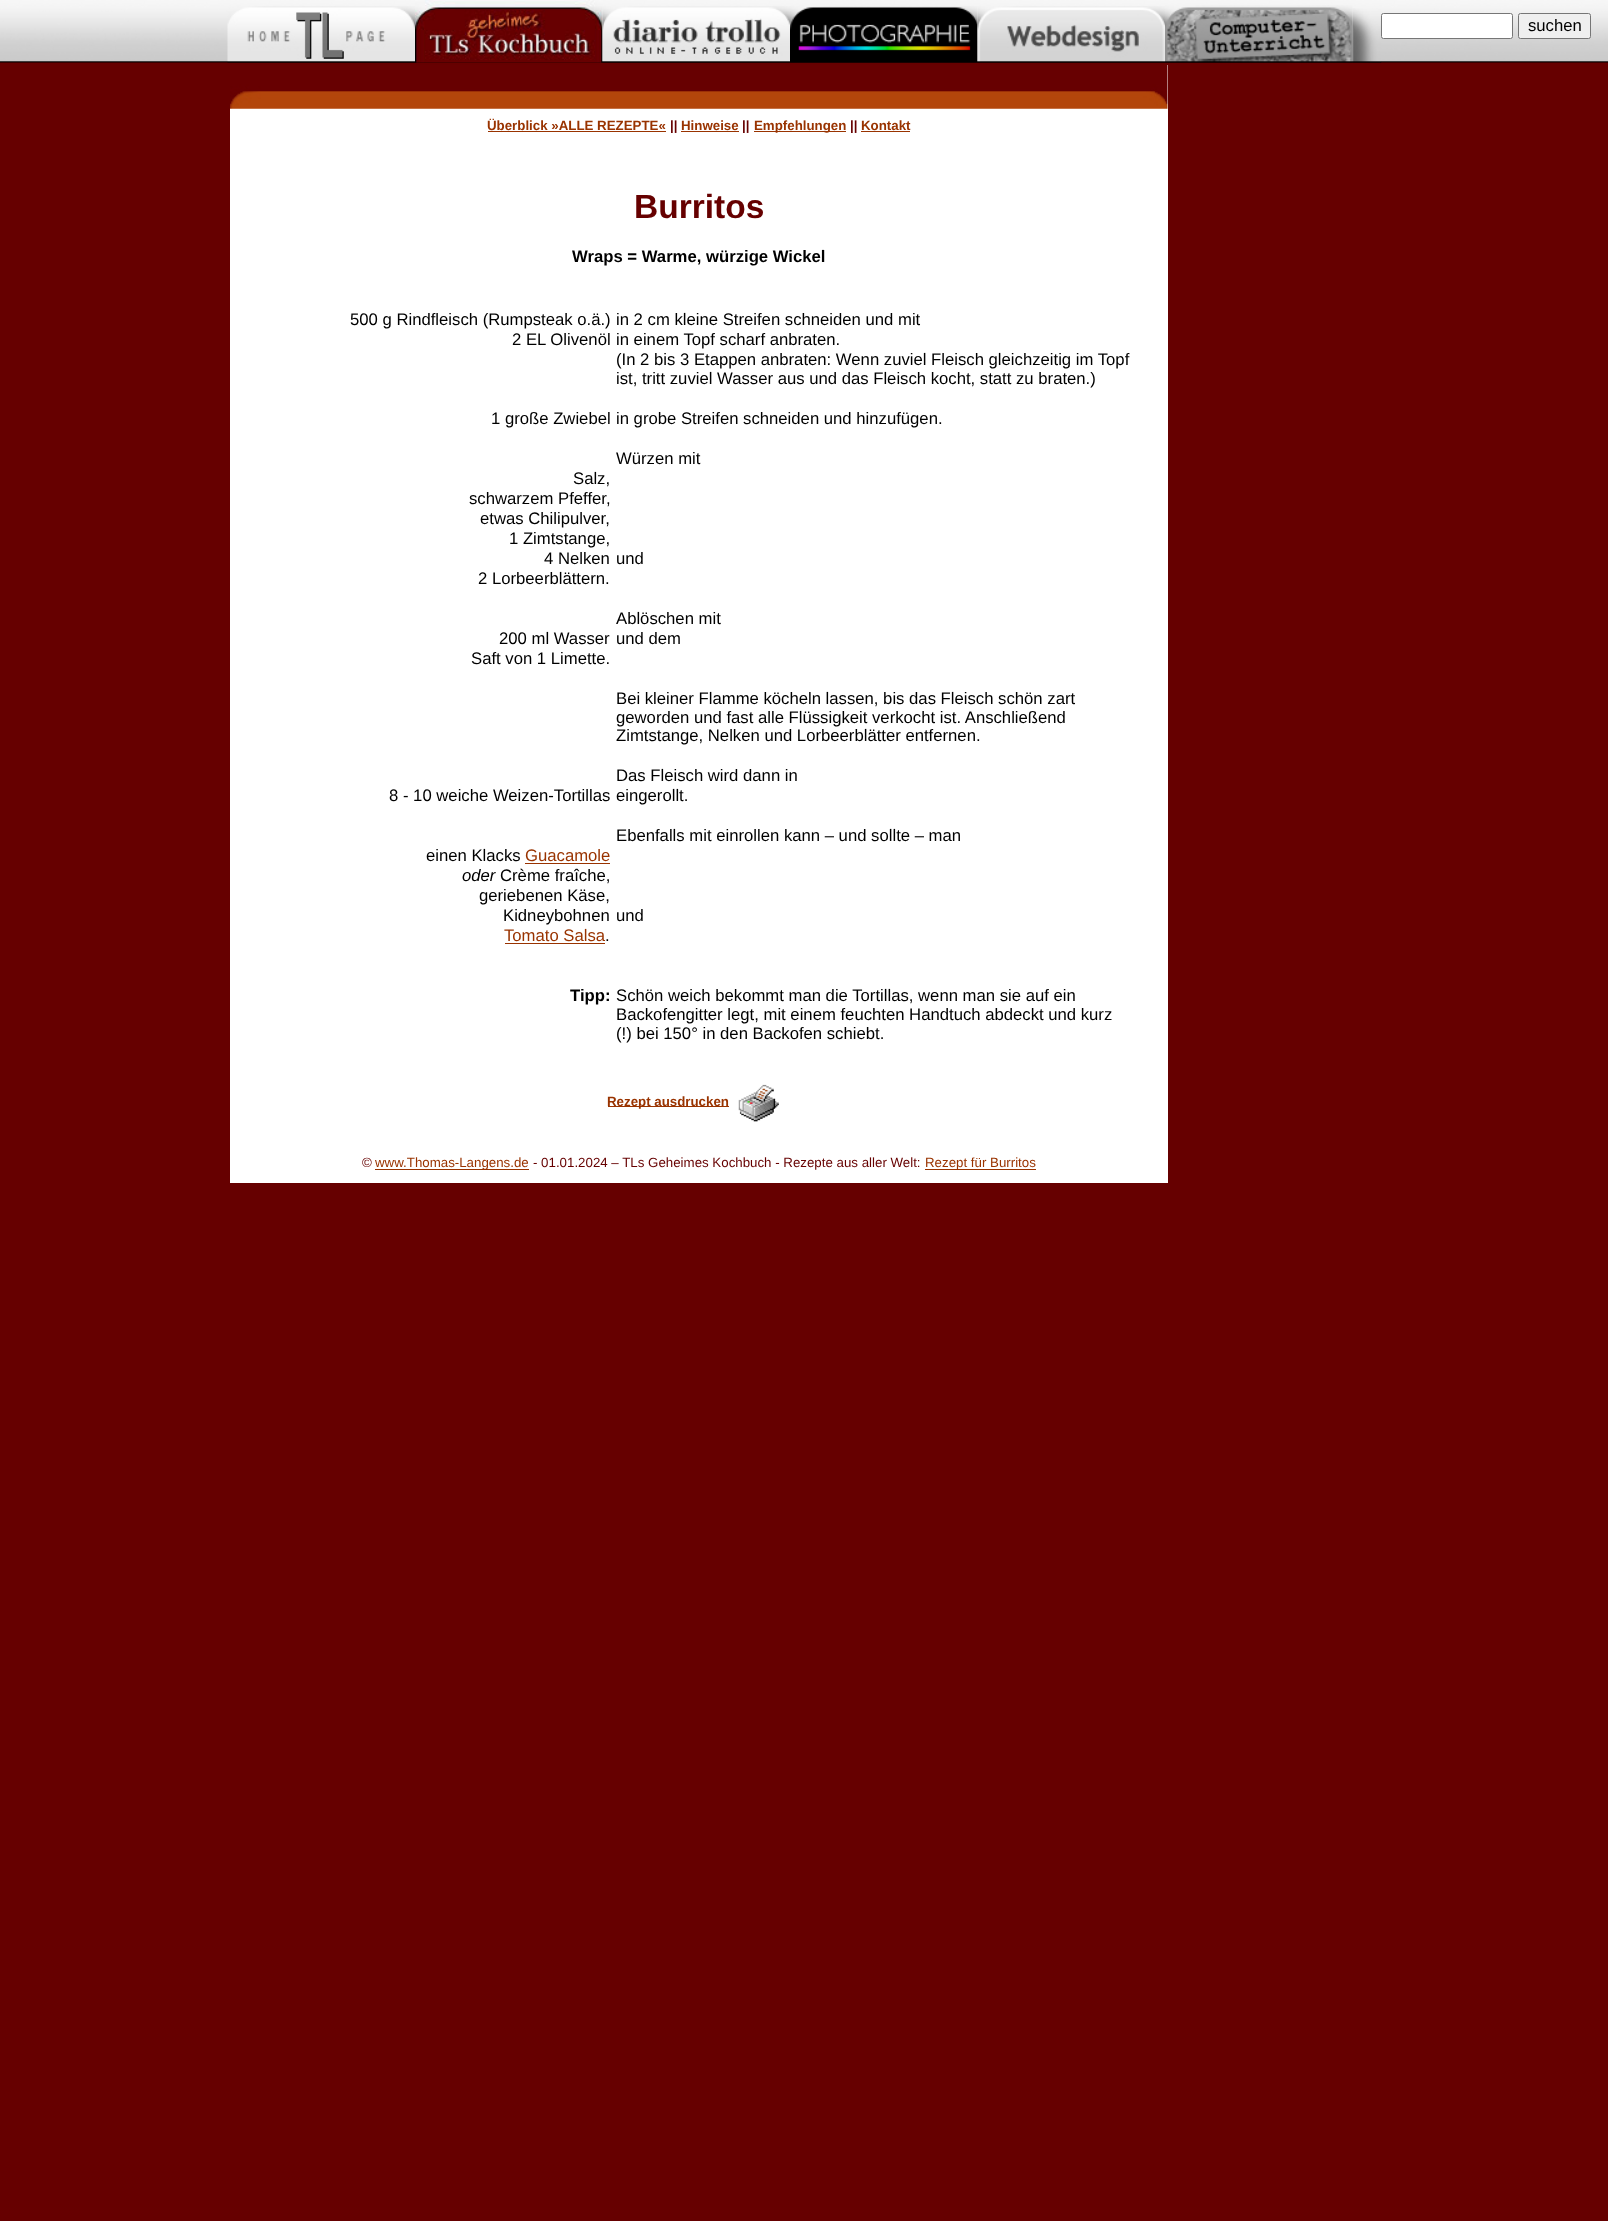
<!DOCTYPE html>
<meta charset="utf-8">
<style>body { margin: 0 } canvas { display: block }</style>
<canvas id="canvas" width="1608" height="2221"></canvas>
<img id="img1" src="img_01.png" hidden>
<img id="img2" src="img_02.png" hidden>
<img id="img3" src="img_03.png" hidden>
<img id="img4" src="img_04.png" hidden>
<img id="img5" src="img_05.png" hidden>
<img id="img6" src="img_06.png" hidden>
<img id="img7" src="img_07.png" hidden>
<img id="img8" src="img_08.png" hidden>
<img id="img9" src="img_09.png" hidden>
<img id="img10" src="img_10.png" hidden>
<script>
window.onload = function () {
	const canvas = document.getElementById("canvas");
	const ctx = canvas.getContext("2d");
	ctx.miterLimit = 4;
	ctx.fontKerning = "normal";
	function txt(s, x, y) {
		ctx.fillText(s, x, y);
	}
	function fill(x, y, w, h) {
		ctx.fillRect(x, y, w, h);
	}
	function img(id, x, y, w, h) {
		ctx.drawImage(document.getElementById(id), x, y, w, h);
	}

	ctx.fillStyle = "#660000";
	fill(0, 0, 1608, 2221);
	img("img1", 0, 0, 1608, 63);
	img("img2", 227, 6, 188, 57);
	img("img3", 415, 0, 188, 63);
	img("img4", 602, 6, 188, 57);
	img("img5", 790, 6, 188, 57);
	img("img6", 977, 6, 188, 57);
	img("img7", 1165, 5, 188, 58);
	img("img8", 1352, 8, 30, 55);
	ctx.fillStyle = "#FFFFFF";
	ctx.beginPath();
	ctx.roundRect(1381.5, 13.5, 131, 25, 2);
	ctx.fill();
	ctx.strokeStyle = "#767676";
	ctx.stroke();
	ctx.fillStyle = "#EFEFEF";
	ctx.beginPath();
	ctx.roundRect(1518.5, 13.5, 72, 25, 2);
	ctx.fill();
	ctx.stroke();
	ctx.fillStyle = "#FFFFFF";
	fill(230, 65, 938, 1118);
	img("img9", 230, 65, 938, 44);
	ctx.fillStyle = "#993300";
	fill(488, 131, 178, 1);
	fill(681, 131, 58, 1);
	fill(754, 131, 92, 1);
	fill(861, 131, 49, 1);
	fill(525, 863, 85, 1);
	fill(505, 943, 100, 1);
	fill(608, 1106, 121, 1);
	img("img10", 738, 1084, 41, 38);
	fill(375, 1169, 154, 1);
	fill(925, 1169, 111, 1);
	ctx.font = "16.7px Liberation Sans";
	ctx.fillStyle = "#000000";
	txt("suchen", 1528, 31);
	ctx.font = "bold 13.3px Liberation Sans";
	ctx.fillStyle = "#993300";
	txt("Überblick »ALLE REZEPTE«", 487, 130);
	ctx.fillStyle = "#660000";
	txt("||", 670, 130);
	ctx.fillStyle = "#993300";
	txt("Hinweise", 681, 130);
	ctx.fillStyle = "#660000";
	txt("||", 742, 130);
	ctx.fillStyle = "#993300";
	txt("Empfehlungen", 754, 130);
	ctx.fillStyle = "#660000";
	txt("||", 850, 130);
	ctx.fillStyle = "#993300";
	txt("Kontakt", 861, 130);
	ctx.font = "bold 33.5px Liberation Sans";
	ctx.fillStyle = "#660000";
	txt("Burritos", 634, 218);
	ctx.font = "bold 16.7px Liberation Sans";
	ctx.fillStyle = "#000000";
	txt("Wraps = Warme, würzige Wickel", 572, 262);
	ctx.font = "16.7px Liberation Sans";
	txt("500 g Rindfleisch (Rumpsteak o.ä.)", 350, 325);
	txt("in 2 cm kleine Streifen schneiden und mit", 616, 325);
	txt("2 EL Olivenöl", 512, 345);
	txt("in einem Topf scharf anbraten.", 616, 345);
	txt("(In 2 bis 3 Etappen anbraten: Wenn zuviel Fleisch gleichzeitig im Topf", 616, 365);
	txt("ist, tritt zuviel Wasser aus und das Fleisch kocht, statt zu braten.)", 616, 384);
	txt("1 große Zwiebel", 491, 424);
	txt("in grobe Streifen schneiden und hinzufügen.", 616, 424);
	txt("Würzen mit", 616, 464);
	txt("Salz,", 573, 484);
	txt("schwarzem Pfeffer,", 469, 504);
	txt("etwas Chilipulver,", 480, 524);
	txt("1 Zimtstange,", 509, 544);
	txt("4 Nelken", 544, 564);
	txt("und", 616, 564);
	txt("2 Lorbeerblättern.", 478, 584);
	txt("Ablöschen mit", 616, 624);
	txt("200 ml Wasser", 499, 644);
	txt("und dem", 616, 644);
	txt("Saft von 1 Limette.", 471, 664);
	txt("Bei kleiner Flamme köcheln lassen, bis das Fleisch schön zart", 616, 704);
	txt("geworden und fast alle Flüssigkeit verkocht ist. Anschließend", 616, 723);
	txt("Zimtstange, Nelken und Lorbeerblätter entfernen.", 616, 741);
	txt("Das Fleisch wird dann in", 616, 781);
	txt("8 - 10 weiche Weizen-Tortillas", 389, 801);
	txt("eingerollt.", 616, 801);
	txt("Ebenfalls mit einrollen kann – und sollte – man", 616, 841);
	txt("einen Klacks", 426, 861);
	ctx.fillStyle = "#993300";
	txt("Guacamole", 525, 861);
	ctx.font = "italic 16.7px Liberation Sans";
	ctx.fillStyle = "#000000";
	txt("oder", 462, 881);
	ctx.font = "16.7px Liberation Sans";
	txt("Crème fraîche,", 500, 881);
	txt("geriebenen Käse,", 479, 901);
	txt("Kidneybohnen", 503, 921);
	txt("und", 616, 921);
	ctx.fillStyle = "#993300";
	txt("Tomato Salsa", 504, 941);
	ctx.fillStyle = "#000000";
	txt(".", 605, 941);
	ctx.font = "bold 16.7px Liberation Sans";
	txt("Tipp:", 570, 1001);
	ctx.font = "16.7px Liberation Sans";
	txt("Schön weich bekommt man die Tortillas, wenn man sie auf ein", 616, 1001);
	txt("Backofengitter legt, mit einem feuchten Handtuch abdeckt und kurz", 616, 1020);
	txt("(!) bei 150° in den Backofen schiebt.", 616, 1039);
	ctx.font = "bold 13.3px Liberation Sans";
	ctx.fillStyle = "#993300";
	txt("Rezept ausdrucken", 607, 1106);
	ctx.font = "13.3px Liberation Sans";
	ctx.fillStyle = "#660000";
	txt("©", 362, 1167);
	ctx.fillStyle = "#993300";
	txt("www.Thomas-Langens.de", 375, 1167);
	ctx.fillStyle = "#660000";
	txt("- 01.01.2024 – TLs Geheimes Kochbuch - Rezepte aus aller Welt:", 533, 1167);
	ctx.fillStyle = "#993300";
	txt("Rezept für Burritos", 925, 1167);
};
</script>
